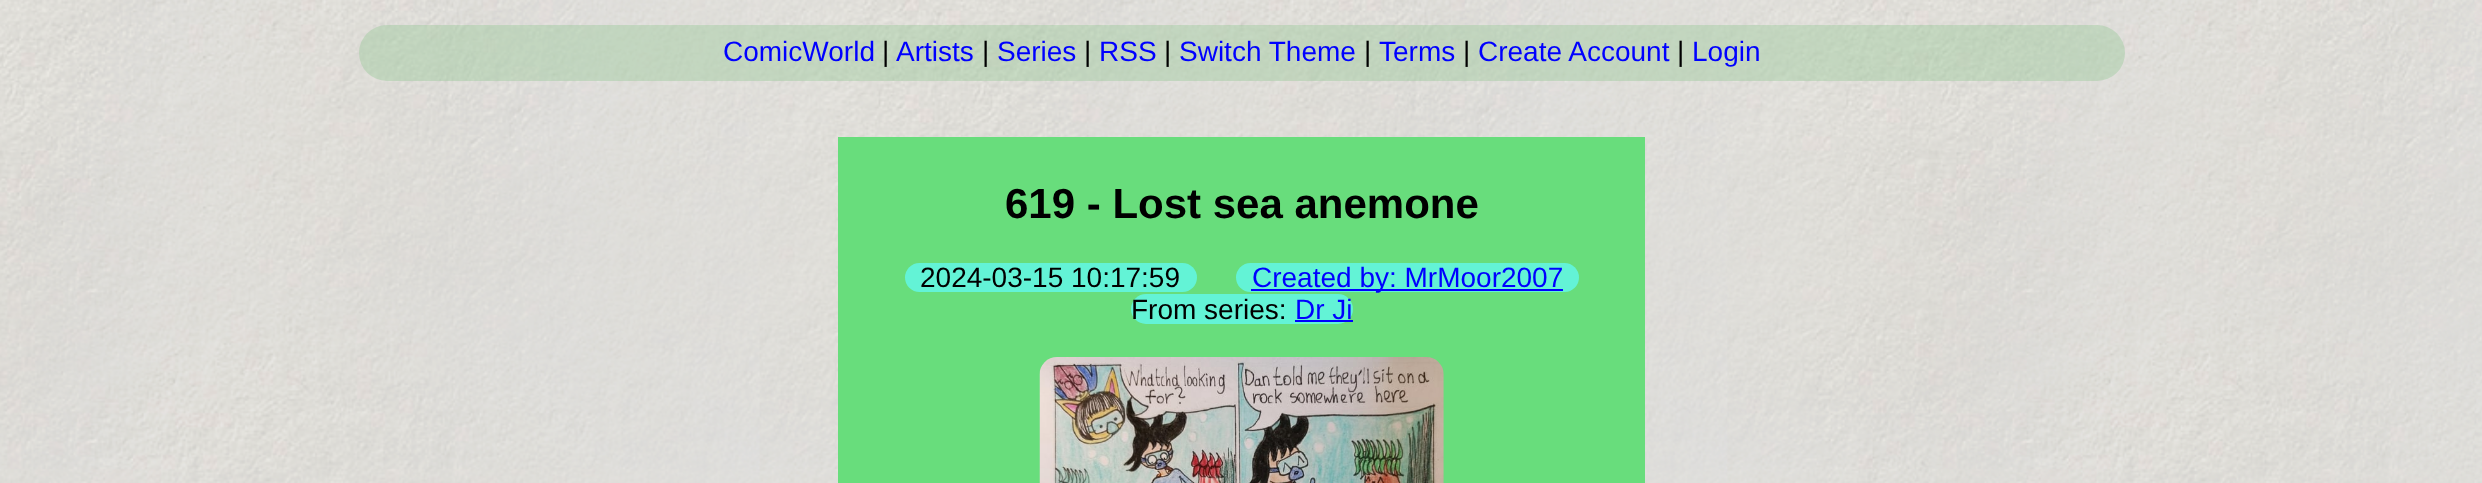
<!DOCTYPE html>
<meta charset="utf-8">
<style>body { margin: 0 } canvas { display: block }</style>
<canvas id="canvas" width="2482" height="483"></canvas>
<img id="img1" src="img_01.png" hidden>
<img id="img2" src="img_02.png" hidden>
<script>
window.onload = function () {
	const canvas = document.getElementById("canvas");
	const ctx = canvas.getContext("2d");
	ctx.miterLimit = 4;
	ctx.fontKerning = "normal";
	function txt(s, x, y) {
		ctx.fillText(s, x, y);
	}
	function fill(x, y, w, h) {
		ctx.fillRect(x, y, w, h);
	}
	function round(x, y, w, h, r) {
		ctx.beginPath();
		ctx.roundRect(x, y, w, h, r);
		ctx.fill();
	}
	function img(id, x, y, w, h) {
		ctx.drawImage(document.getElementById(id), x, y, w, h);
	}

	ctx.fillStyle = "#FFFFFF";
	fill(0, 0, 2482, 483);
	img("img1", 0, 0, 2482, 483);
	ctx.fillStyle = "rgba(150, 200, 150, 0.4)";
	round(359, 25, 1766, 56, 28);
	ctx.fillStyle = "#68DD7C";
	fill(838, 137, 807, 346);
	ctx.fillStyle = "#63F3D6";
	round(905, 263, 292, 29, 14.5);
	round(1236, 263, 343, 29, 14.5);
	ctx.fillStyle = "#0000FF";
	fill(1251, 289, 312, 2);
	ctx.fillStyle = "#63F3D6";
	ctx.beginPath();
	ctx.roundRect(1131, 294, 164, 30, [15, 0, 0, 15]);
	ctx.fill();
	ctx.beginPath();
	ctx.roundRect(1295, 294, 58, 30, [0, 15, 15, 0]);
	ctx.fill();
	ctx.fillStyle = "#0000FF";
	fill(1295, 320, 58, 2);
	img("img2", 1039, 357, 405, 126);
	ctx.font = "28px Liberation Sans";
	txt("ComicWorld", 723, 61);
	ctx.fillStyle = "#000000";
	txt("|", 882, 61);
	ctx.fillStyle = "#0000FF";
	txt("Artists", 896, 61);
	ctx.fillStyle = "#000000";
	txt("|", 982, 61);
	ctx.fillStyle = "#0000FF";
	txt("Series", 997, 61);
	ctx.fillStyle = "#000000";
	txt("|", 1084, 61);
	ctx.fillStyle = "#0000FF";
	txt("RSS", 1099, 61);
	ctx.fillStyle = "#000000";
	txt("|", 1164, 61);
	ctx.fillStyle = "#0000FF";
	txt("Switch Theme", 1179, 61);
	ctx.fillStyle = "#000000";
	txt("|", 1364, 61);
	ctx.fillStyle = "#0000FF";
	txt("Terms", 1379, 61);
	ctx.fillStyle = "#000000";
	txt("|", 1463, 61);
	ctx.fillStyle = "#0000FF";
	txt("Create Account", 1478, 61);
	ctx.fillStyle = "#000000";
	txt("|", 1677, 61);
	ctx.fillStyle = "#0000FF";
	txt("Login", 1692, 61);
	ctx.font = "bold 42px Liberation Sans";
	ctx.fillStyle = "#000000";
	txt("619 - Lost sea anemone", 1005, 218);
	ctx.font = "28px Liberation Sans";
	txt("2024-03-15 10:17:59", 920, 287);
	ctx.fillStyle = "#0000FF";
	txt("Created by: MrMoor2007", 1252, 287);
	ctx.fillStyle = "#000000";
	txt("From series:", 1131, 319);
	ctx.fillStyle = "#0000FF";
	txt("Dr Ji", 1295, 319);
};
</script>
